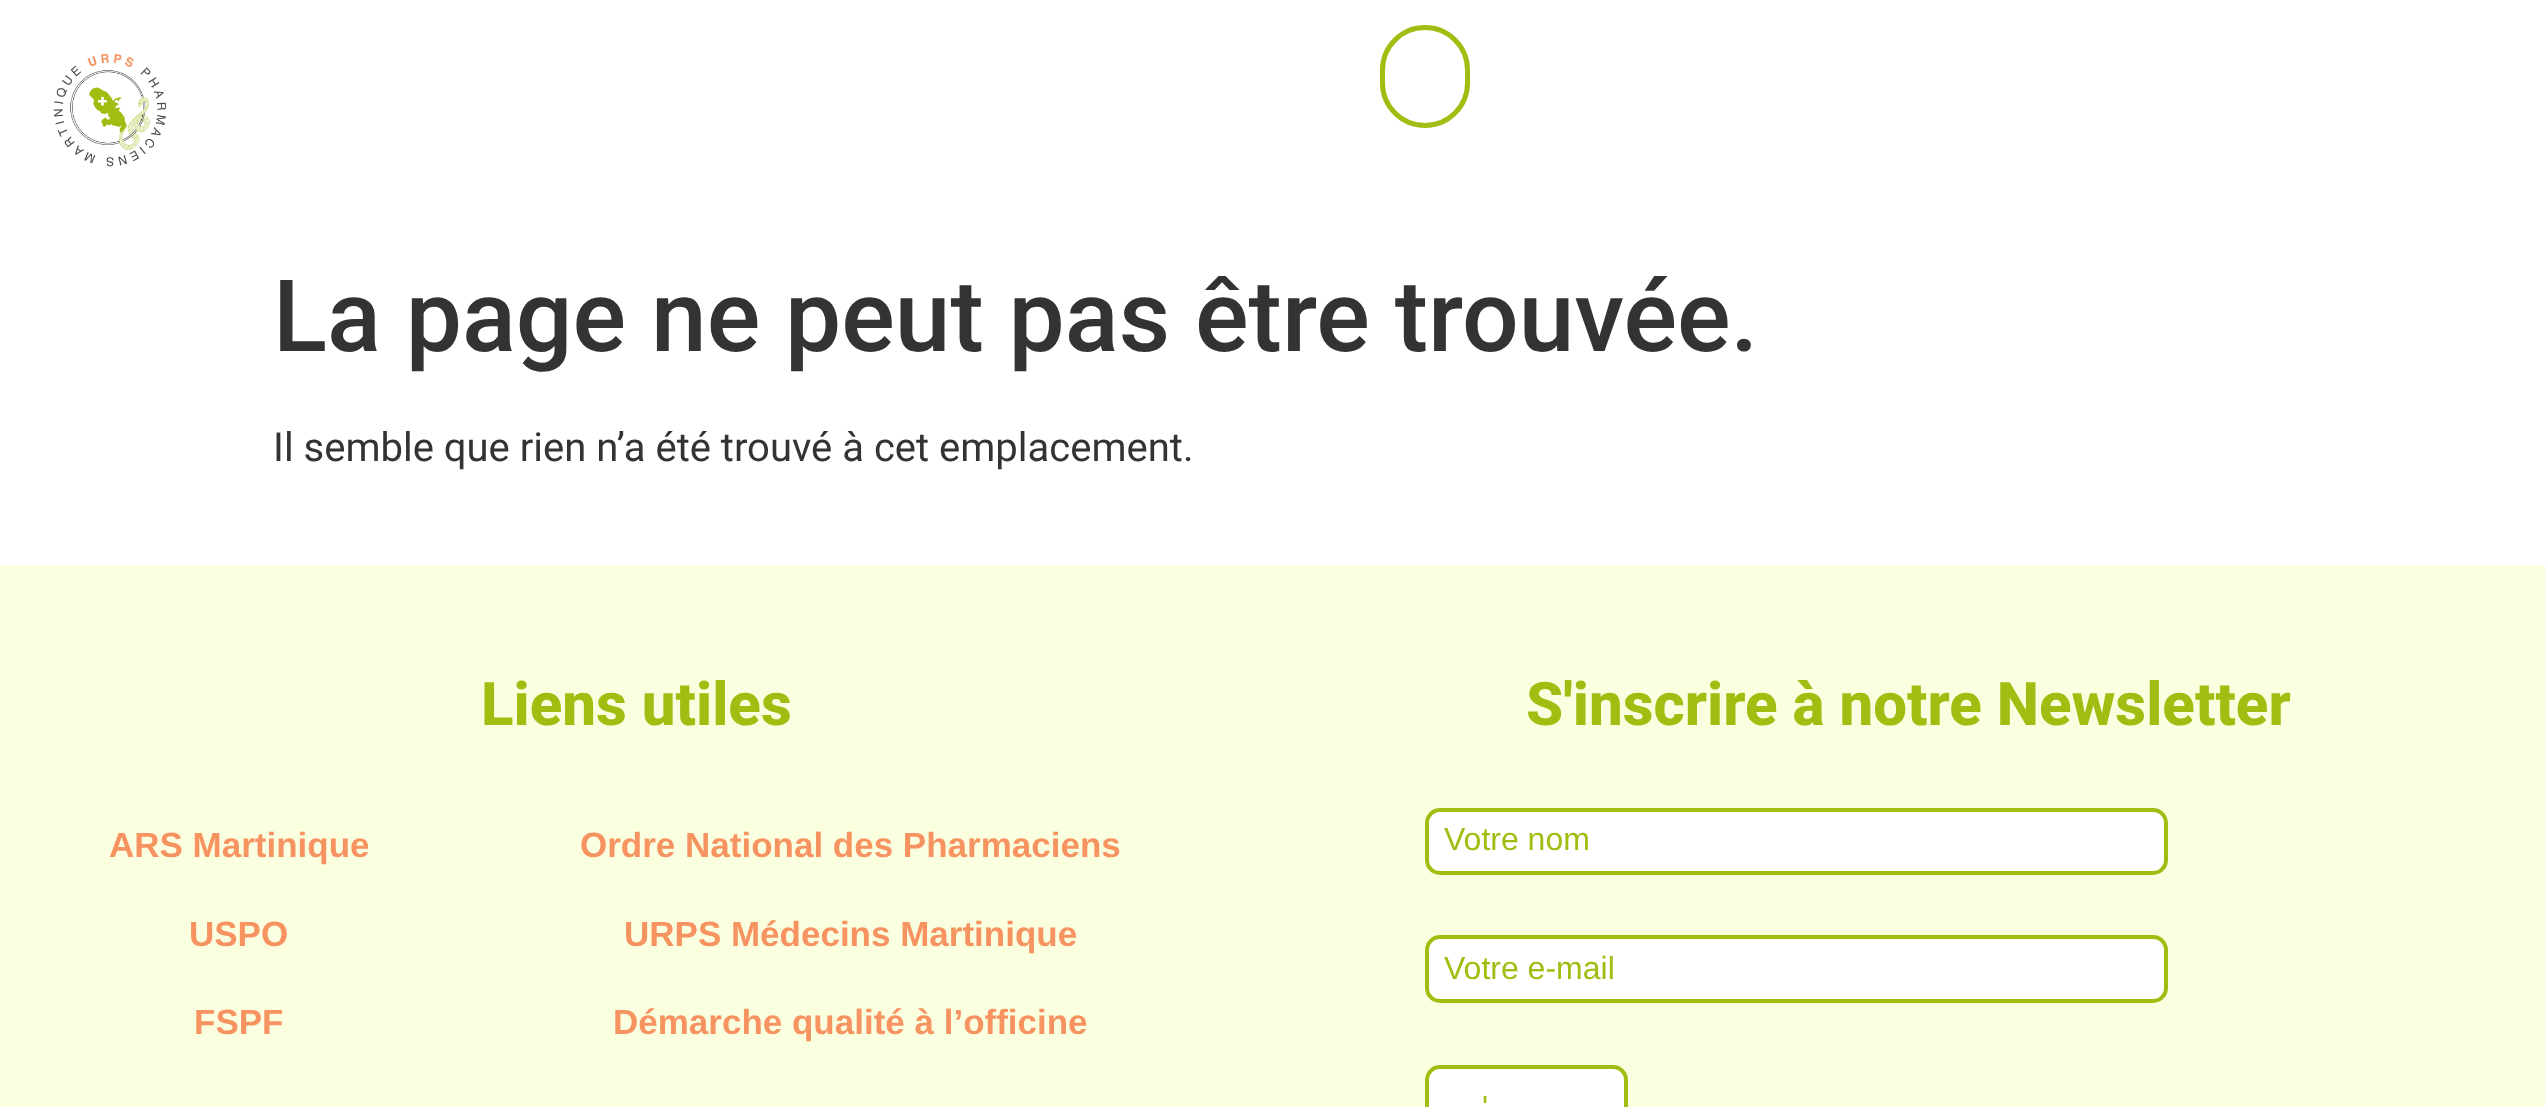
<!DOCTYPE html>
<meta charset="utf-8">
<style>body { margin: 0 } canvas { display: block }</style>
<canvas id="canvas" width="2545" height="1107"></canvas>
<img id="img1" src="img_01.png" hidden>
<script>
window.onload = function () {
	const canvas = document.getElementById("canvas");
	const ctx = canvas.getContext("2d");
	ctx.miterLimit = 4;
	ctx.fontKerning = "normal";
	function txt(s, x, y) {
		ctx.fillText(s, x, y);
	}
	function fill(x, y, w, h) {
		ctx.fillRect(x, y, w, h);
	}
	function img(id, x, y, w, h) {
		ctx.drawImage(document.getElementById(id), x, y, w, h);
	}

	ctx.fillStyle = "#FFFFFF";
	fill(0, 0, 2545, 1107);
	img("img1", 53, 54, 113, 113);
	ctx.beginPath();
	ctx.roundRect(1382.5, 27.5, 85, 98, 42.5);
	ctx.strokeStyle = "#A3BC11";
	ctx.lineWidth = 5;
	ctx.stroke();
	ctx.fillStyle = "#FAFFE0";
	fill(0, 565, 2545, 542);
	ctx.fillStyle = "#FFFFFF";
	ctx.beginPath();
	ctx.roundRect(1427, 810, 739, 63, 13);
	ctx.fill();
	ctx.lineWidth = 4;
	ctx.stroke();
	ctx.beginPath();
	ctx.roundRect(1427, 937, 739, 64, 13);
	ctx.fill();
	ctx.stroke();
	ctx.beginPath();
	ctx.roundRect(1427, 1067, 199, 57, 13);
	ctx.fill();
	ctx.stroke();
	ctx.font = "500 100px Roboto";
	ctx.fillStyle = "#333333";
	txt("La page ne peut pas être trouvée.", 273, 351);
	ctx.font = "40px Roboto";
	txt("Il semble que rien n’a été trouvé à cet emplacement.", 273, 461);
	ctx.font = "800 60px Roboto";
	ctx.fillStyle = "#A3BC11";
	txt("Liens utiles", 481, 725);
	ctx.font = "bold 35px Liberation Sans";
	ctx.fillStyle = "#F79360";
	txt("ARS Martinique", 109, 857);
	txt("USPO", 189, 946);
	txt("FSPF", 194, 1034);
	txt("Ordre National des Pharmaciens", 580, 857);
	txt("URPS Médecins Martinique", 624, 946);
	txt("Démarche qualité à l’officine", 613, 1034);
	ctx.font = "800 60px Roboto";
	ctx.fillStyle = "#A3BC11";
	txt("S'inscrire à notre Newsletter", 1526, 725);
	ctx.font = "32px Liberation Sans";
	txt("Votre nom", 1444, 850);
	txt("Votre e-mail", 1444, 979);
	txt("'", 1482, 1118);
};
</script>
